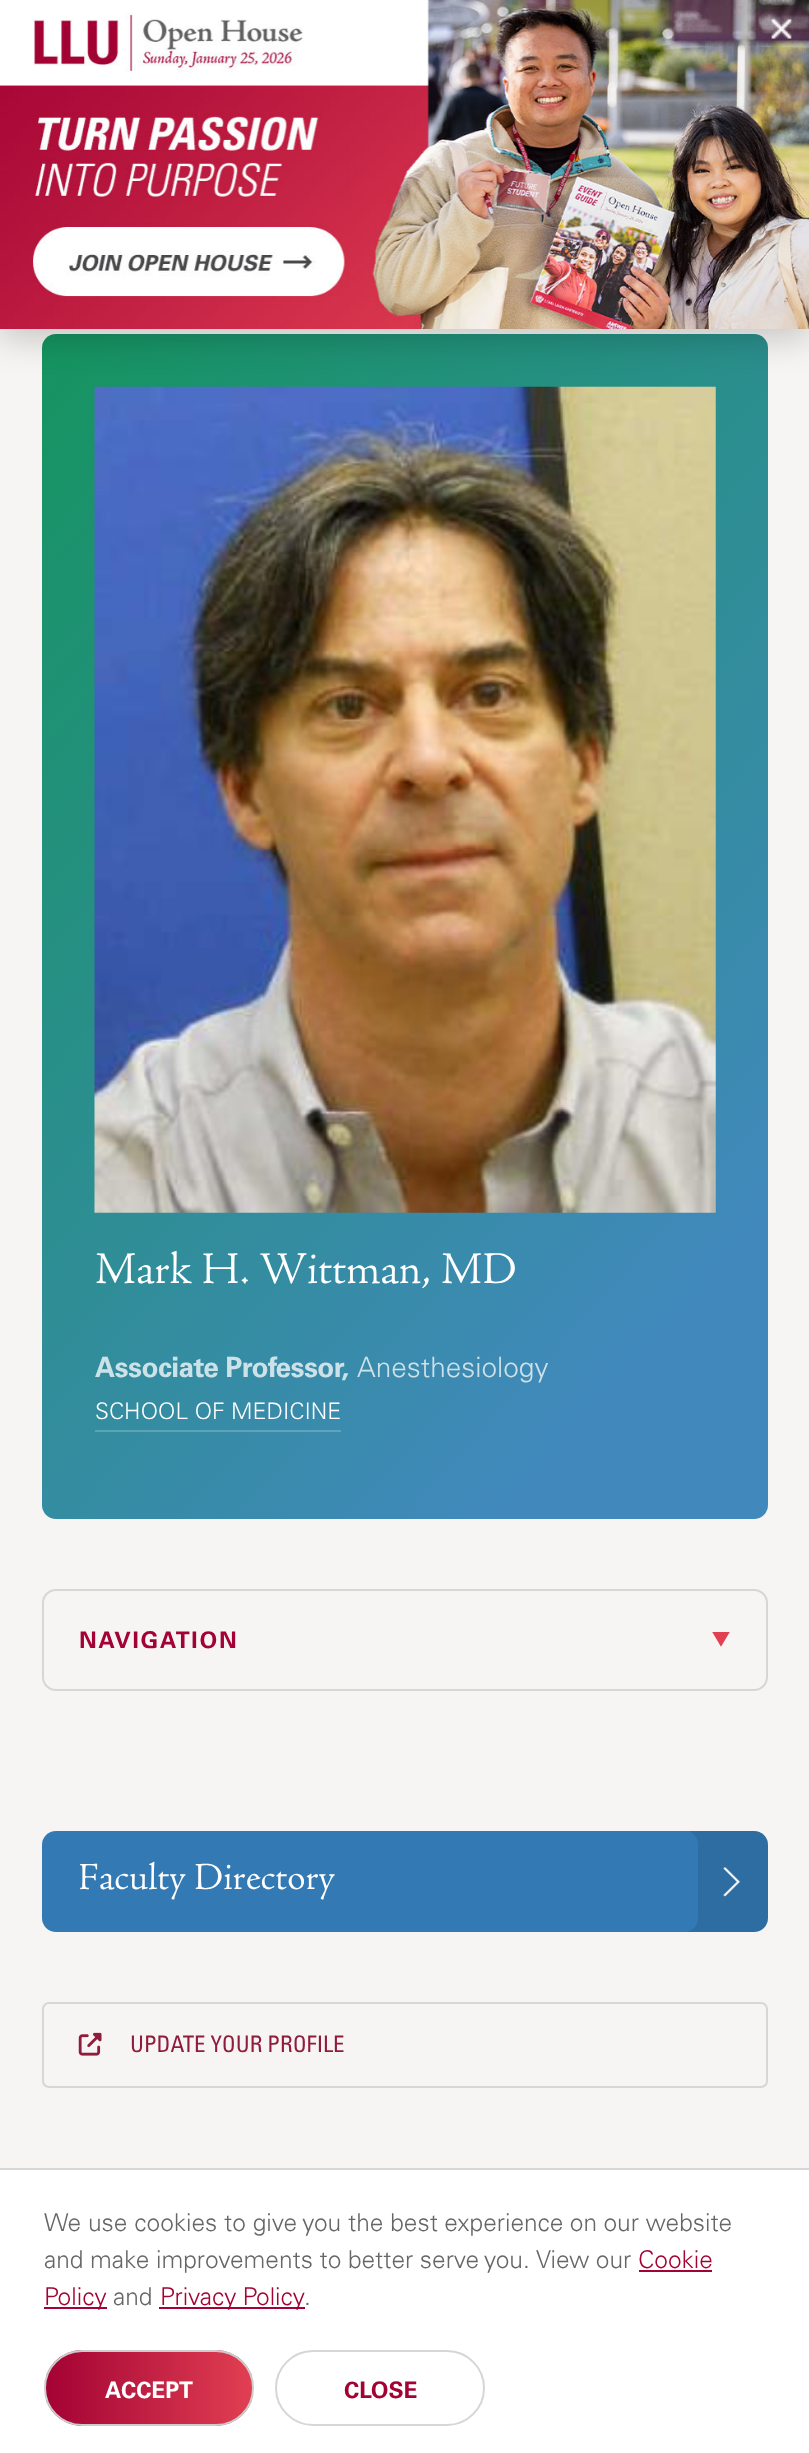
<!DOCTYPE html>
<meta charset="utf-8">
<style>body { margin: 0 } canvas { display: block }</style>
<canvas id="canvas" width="809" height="2453"></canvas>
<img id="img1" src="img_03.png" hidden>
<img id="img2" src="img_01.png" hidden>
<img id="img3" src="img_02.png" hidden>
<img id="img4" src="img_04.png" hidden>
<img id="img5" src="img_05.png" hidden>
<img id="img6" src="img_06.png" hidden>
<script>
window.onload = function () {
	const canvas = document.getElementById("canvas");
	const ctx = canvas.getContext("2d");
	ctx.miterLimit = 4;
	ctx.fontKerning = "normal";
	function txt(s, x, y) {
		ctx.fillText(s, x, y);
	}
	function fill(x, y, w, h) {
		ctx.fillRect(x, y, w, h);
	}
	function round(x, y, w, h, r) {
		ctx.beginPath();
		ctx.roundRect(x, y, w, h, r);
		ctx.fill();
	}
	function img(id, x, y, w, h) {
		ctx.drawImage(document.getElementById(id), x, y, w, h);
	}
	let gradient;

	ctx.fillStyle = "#F7F5F3";
	fill(0, 0, 809, 2453);
	gradient = ctx.createLinearGradient(-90, 481, 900, 1372);
	gradient.addColorStop(0, "#15945F");
	gradient.addColorStop(0.85, "#4189BD");
	ctx.fillStyle = gradient;
	round(42, 334, 726, 1185, 14);
	img("img1", 94, 386, 622, 827);
	ctx.fillStyle = "rgba(0, 0, 0, 0.2)";
	ctx.filter = "blur(17.5px)";
	ctx.beginPath();
	ctx.rect(0, 9, 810, 329);
	ctx.fill();
	ctx.filter = "none";
	img("img2", 0, 0, 809, 329);
	img("img3", 771, 18, 21, 21);
	gradient = ctx.createLinearGradient(-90, 481, 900, 1372);
	gradient.addColorStop(0, "#44A97F");
	gradient.addColorStop(0.85, "#67A1CA");
	ctx.fillStyle = gradient;
	fill(95, 1430, 246, 2);
	ctx.beginPath();
	ctx.roundRect(43, 1590, 724, 100, 13);
	ctx.strokeStyle = "#D6D6D6";
	ctx.lineWidth = 2;
	ctx.stroke();
	img("img4", 712, 1632, 18, 15);
	ctx.fillStyle = "#337AB4";
	round(42, 1831, 726, 101, 14);
	ctx.fillStyle = "rgba(0, 0, 0, 0.1)";
	ctx.beginPath();
	ctx.moveTo(684, 1932);
	ctx.lineTo(754, 1932);
	ctx.bezierCurveTo(762, 1932, 768, 1926, 768, 1918);
	ctx.lineTo(768, 1845);
	ctx.bezierCurveTo(768, 1837, 762, 1831, 754, 1831);
	ctx.lineTo(689, 1831);
	ctx.bezierCurveTo(694, 1833, 698, 1839, 698, 1844);
	ctx.lineTo(698, 1918);
	ctx.bezierCurveTo(698, 1926, 692, 1932, 684, 1932);
	ctx.closePath();
	ctx.fill();
	img("img5", 723, 1867, 18, 30);
	ctx.beginPath();
	ctx.roundRect(43, 2003, 724, 84, 6);
	ctx.stroke();
	img("img6", 78, 2032, 24, 24);
	ctx.fillStyle = "#FFFFFF";
	fill(0, 2170, 809, 283);
	ctx.fillStyle = "#D6D6D6";
	fill(0, 2168, 809, 2);
	ctx.fillStyle = "#A30234";
	fill(639, 2270, 73, 2);
	fill(44, 2307, 63, 2);
	fill(159, 2307, 146, 2);
	ctx.save();
	ctx.beginPath();
	ctx.roundRect(44, 2350, 210, 76, 38);
	ctx.clip();
	gradient = ctx.createLinearGradient(46, 2388, 252, 2388);
	gradient.addColorStop(0, "#A30234");
	gradient.addColorStop(1, "#E13F52");
	ctx.fillStyle = gradient;
	fill(46, 2350, 206, 76);
	ctx.restore();
	ctx.beginPath();
	ctx.roundRect(45, 2351, 208, 74, 37);
	ctx.strokeStyle = "#CCCCCC";
	ctx.stroke();
	ctx.beginPath();
	ctx.roundRect(276, 2351, 208, 74, 37);
	ctx.strokeStyle = "#D6D6D6";
	ctx.stroke();
	ctx.font = "300 45.5px 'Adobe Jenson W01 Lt'";
	ctx.fillStyle = "#FFFFFF";
	txt("Mark H. Wittman, MD", 95, 1283);
	ctx.letterSpacing = "-0.6px";
	ctx.font = "bold 28px 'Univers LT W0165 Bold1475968'";
	ctx.fillStyle = "#CDE2E8";
	txt("Associate Professor,", 95, 1377);
	ctx.letterSpacing = "0px";
	ctx.font = "300 28px 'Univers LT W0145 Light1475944'";
	txt("Anesthesiology", 357, 1377);
	ctx.font = "300 22.75px 'Univers LT W0145 Light1475944'";
	ctx.fillStyle = "#FFFFFF";
	txt("SCHOOL OF MEDICINE", 95, 1419);
	ctx.letterSpacing = "1.75px";
	ctx.font = "bold 22.75px 'Univers LT W0165 Bold1475968'";
	ctx.fillStyle = "#A30234";
	txt("NAVIGATION", 79, 1648);
	ctx.letterSpacing = "0px";
	ctx.font = "300 38.5px 'Adobe Jenson W01 Lt'";
	ctx.fillStyle = "#FFFFFF";
	txt("Faculty Directory", 78, 1889);
	ctx.font = "22.75px 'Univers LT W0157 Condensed'";
	ctx.fillStyle = "#901C3B";
	txt("UPDATE YOUR PROFILE", 130, 2052);
	ctx.font = "300 24.5px 'Univers LT W0145 Light1475944'";
	ctx.fillStyle = "#666666";
	txt("We use cookies to give you the best experience on our website", 44, 2231);
	ctx.wordSpacing = "-0.25px";
	txt("and make improvements to better serve you.", 44, 2268);
	ctx.wordSpacing = "0px";
	txt("View our", 536, 2268);
	ctx.fillStyle = "#A30234";
	txt("Cookie", 638, 2268);
	txt("Policy", 44, 2305);
	ctx.fillStyle = "#666666";
	txt("and", 113, 2305);
	ctx.wordSpacing = "-1px";
	ctx.fillStyle = "#A30234";
	txt("Privacy Policy", 160, 2305);
	ctx.wordSpacing = "0px";
	ctx.fillStyle = "#666666";
	txt(".", 304, 2305);
	ctx.font = "bold 22.75px 'Univers LT W0165 Bold1475968'";
	ctx.fillStyle = "#FFFFFF";
	txt("ACCEPT", 105, 2398);
	ctx.fillStyle = "#A30234";
	txt("CLOSE", 344, 2398);
};
</script>
